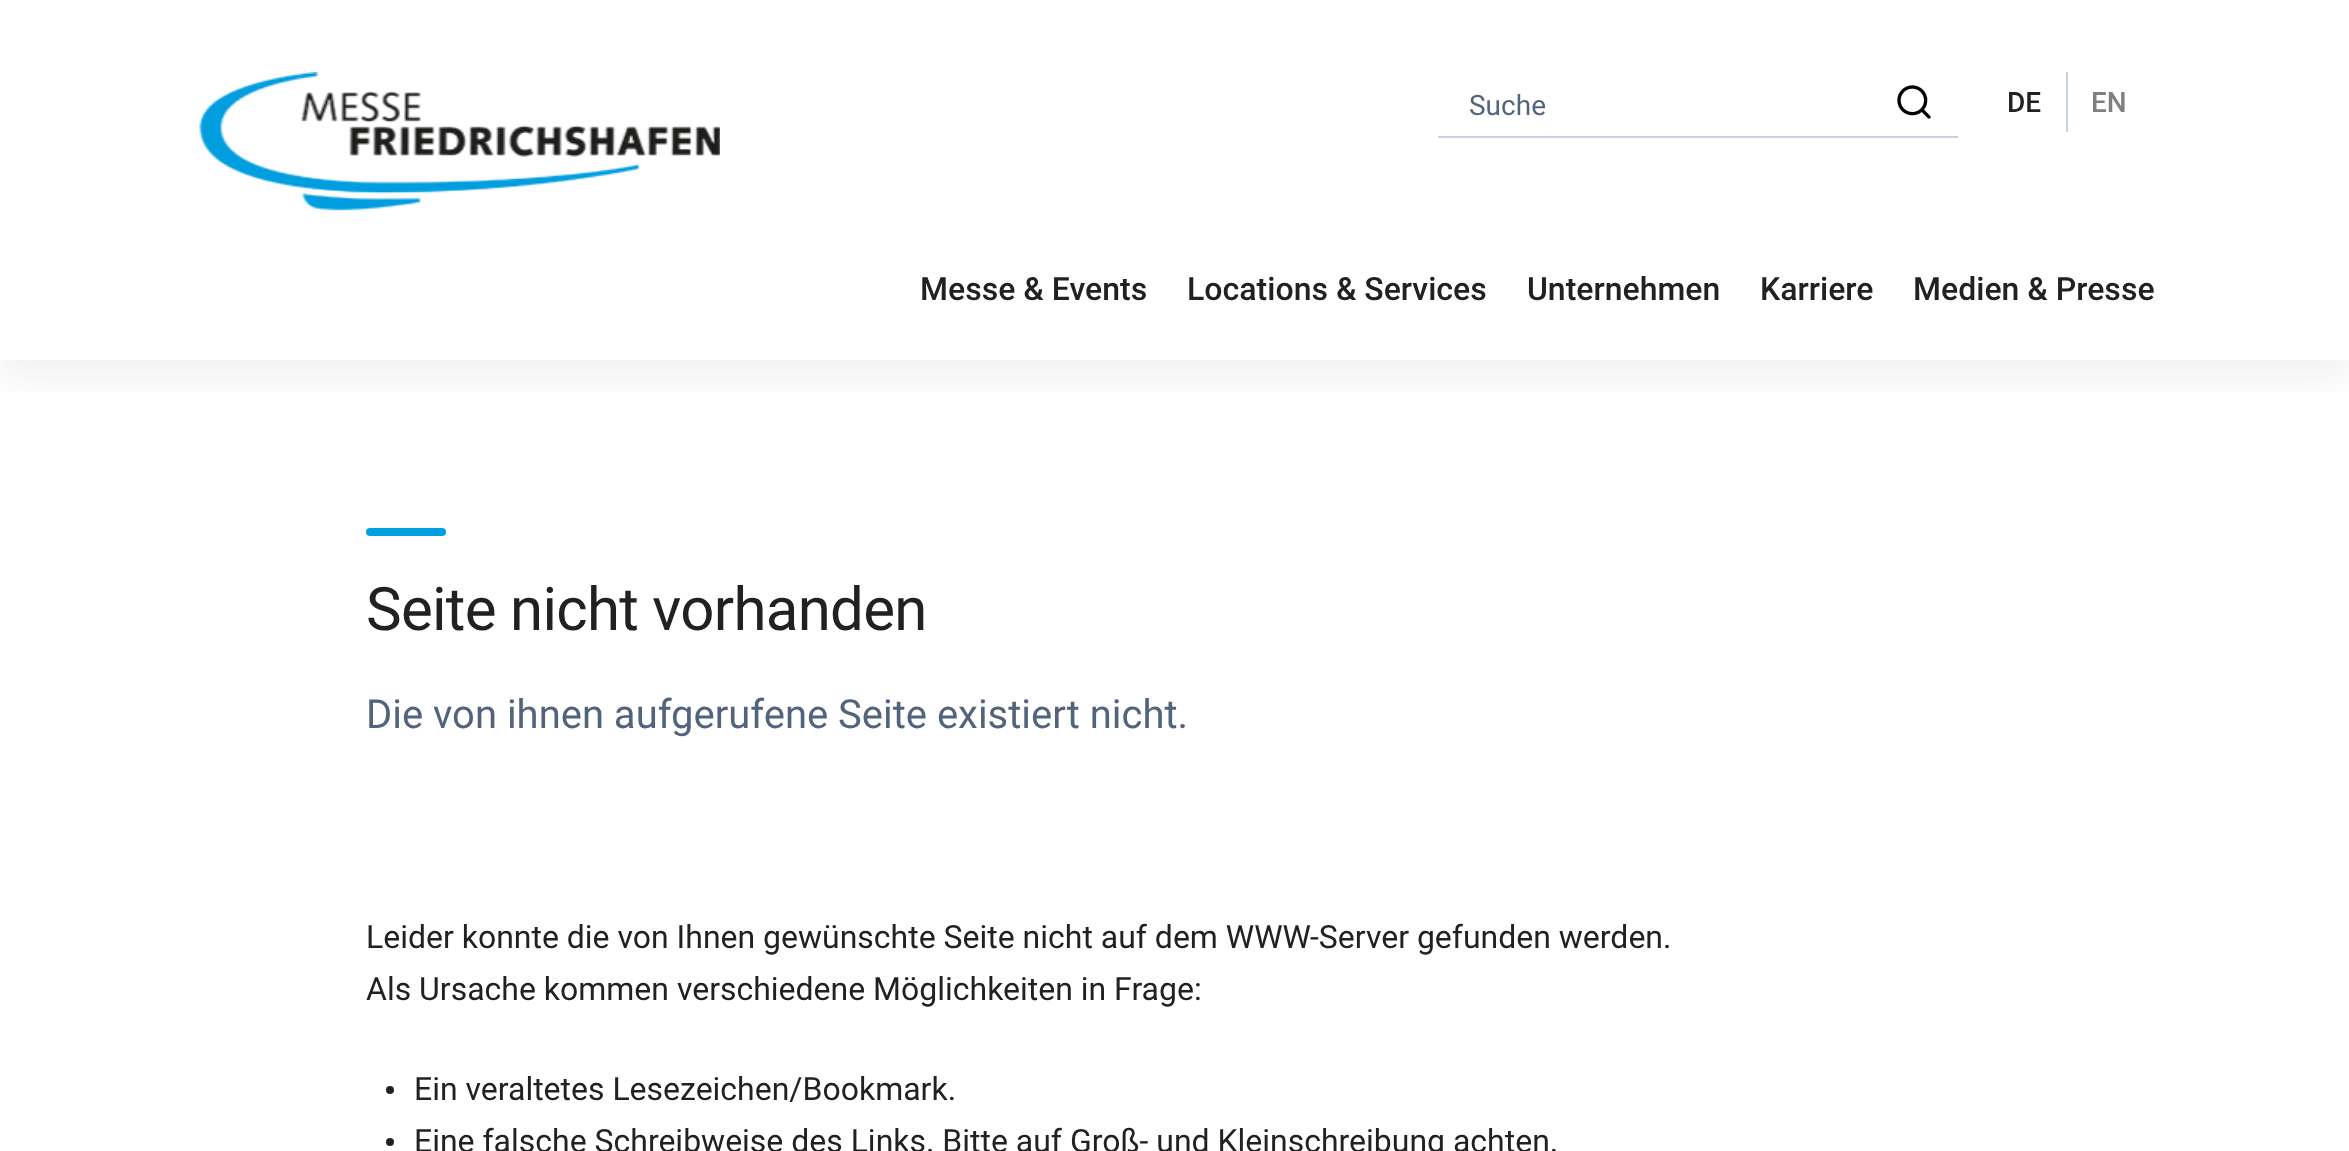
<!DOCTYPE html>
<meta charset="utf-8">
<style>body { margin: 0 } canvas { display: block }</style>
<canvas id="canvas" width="2349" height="1151"></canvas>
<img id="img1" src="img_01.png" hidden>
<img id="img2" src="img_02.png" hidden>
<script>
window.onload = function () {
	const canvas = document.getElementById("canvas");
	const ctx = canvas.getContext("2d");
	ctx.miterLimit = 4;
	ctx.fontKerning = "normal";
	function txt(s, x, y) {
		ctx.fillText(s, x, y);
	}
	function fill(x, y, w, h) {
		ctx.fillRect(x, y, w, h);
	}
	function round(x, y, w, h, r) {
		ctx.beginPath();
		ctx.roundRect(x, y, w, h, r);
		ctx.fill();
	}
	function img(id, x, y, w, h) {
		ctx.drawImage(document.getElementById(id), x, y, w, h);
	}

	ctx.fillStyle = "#FFFFFF";
	fill(0, 0, 2349, 1151);
	ctx.save();
	ctx.beginPath();
	ctx.rect(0, 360, 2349, 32);
	ctx.clip();
	ctx.fillStyle = "rgba(40, 41, 61, 0.08)";
	ctx.filter = "blur(24px)";
	ctx.beginPath();
	ctx.rect(0, 16, 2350, 360);
	ctx.fill();
	ctx.filter = "none";
	ctx.restore();
	img("img1", 199, 72, 521, 139);
	ctx.fillStyle = "#C8D1DE";
	fill(1438, 136, 520, 2);
	img("img2", 1897, 85, 34, 34);
	fill(2066, 72, 2, 60);
	ctx.fillStyle = "#00A0DF";
	round(366, 528, 80, 8, 4);
	ctx.fillStyle = "#212121";
	ctx.beginPath();
	ctx.arc(390, 1090, 4, 0, Math.PI * 2);
	ctx.fill();
	ctx.beginPath();
	ctx.arc(390, 1142, 4, 0, Math.PI * 2);
	ctx.fill();
	ctx.font = "28px Roboto";
	ctx.fillStyle = "#52647C";
	txt("Suche", 1469, 115);
	ctx.font = "500 28px Roboto";
	ctx.fillStyle = "#212121";
	txt("DE", 2007, 112);
	ctx.fillStyle = "#807E7E";
	txt("EN", 2091, 112);
	ctx.font = "500 32px Roboto";
	ctx.fillStyle = "#212121";
	txt("Messe & Events", 920, 300);
	txt("Locations & Services", 1187, 300);
	txt("Unternehmen", 1527, 300);
	txt("Karriere", 1760, 300);
	txt("Medien & Presse", 1913, 300);
	ctx.letterSpacing = "-0.7px";
	ctx.font = "60px Roboto";
	txt("Seite nicht vorhanden", 366, 630);
	ctx.letterSpacing = "0px";
	ctx.font = "40px Roboto";
	ctx.fillStyle = "#52647C";
	txt("Die von ihnen aufgerufene Seite existiert nicht.", 366, 728);
	ctx.font = "32px Roboto";
	ctx.fillStyle = "#212121";
	txt("Leider konnte die von Ihnen gewünschte Seite nicht auf dem WWW-Server gefunden werden.", 366, 948);
	txt("Als Ursache kommen verschiedene Möglichkeiten in Frage:", 366, 1000);
	txt("Ein veraltetes Lesezeichen/Bookmark.", 414, 1100);
	txt("Eine falsche Schreibweise des Links. Bitte auf Groß- und Kleinschreibung achten.", 414, 1152);
};
</script>
